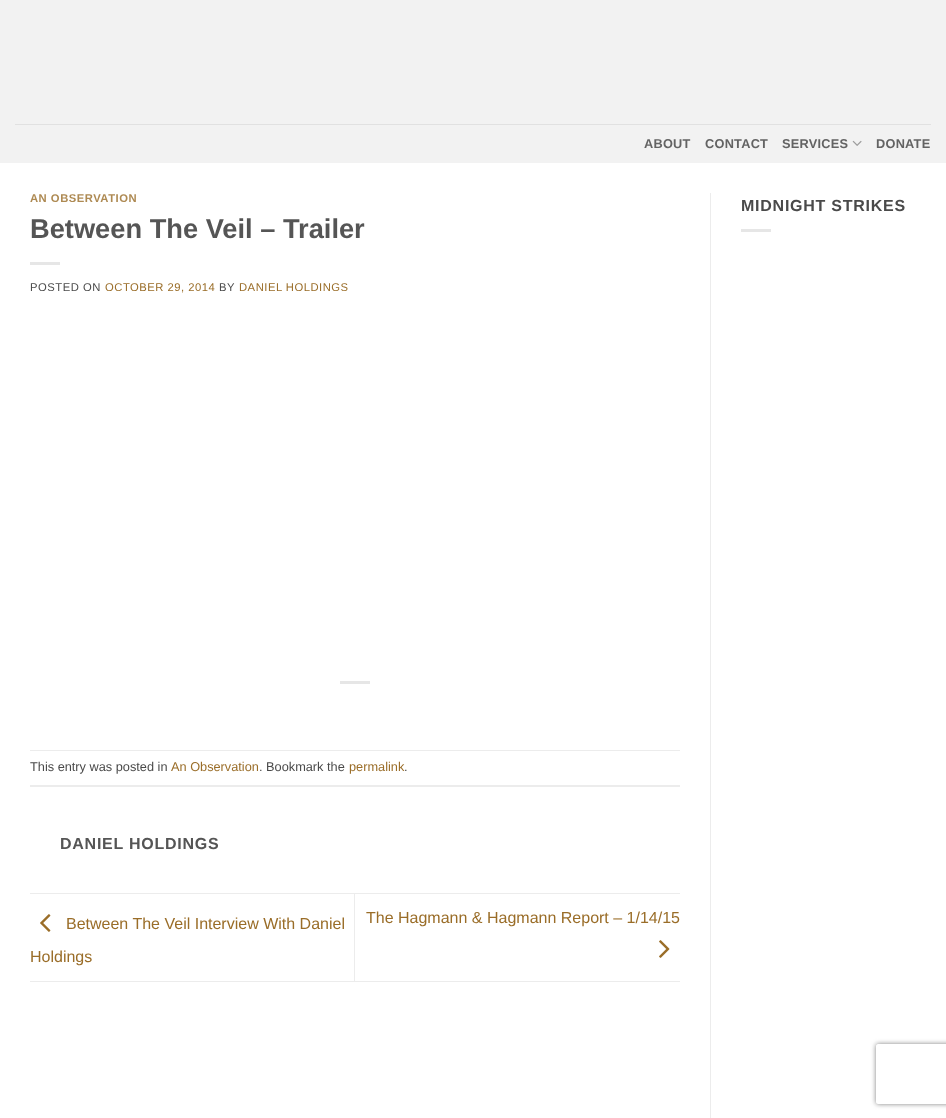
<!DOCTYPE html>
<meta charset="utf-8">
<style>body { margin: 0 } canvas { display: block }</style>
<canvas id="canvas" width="946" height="1118"></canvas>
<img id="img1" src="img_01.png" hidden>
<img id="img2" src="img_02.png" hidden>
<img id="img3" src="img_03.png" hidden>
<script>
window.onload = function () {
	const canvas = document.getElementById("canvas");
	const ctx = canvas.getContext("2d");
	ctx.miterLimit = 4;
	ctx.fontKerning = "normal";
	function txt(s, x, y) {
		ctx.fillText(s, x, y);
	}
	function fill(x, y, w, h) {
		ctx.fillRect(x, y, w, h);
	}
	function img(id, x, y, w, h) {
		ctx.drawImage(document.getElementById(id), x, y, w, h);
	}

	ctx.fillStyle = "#FFFFFF";
	fill(0, 0, 946, 1118);
	ctx.fillStyle = "#F2F2F2";
	fill(0, 0, 946, 163);
	ctx.fillStyle = "#E1E1E1";
	fill(15, 124, 916, 1);
	img("img1", 852, 140, 10, 6);
	ctx.fillStyle = "#E6E6E6";
	fill(30, 262, 30, 3);
	fill(340, 681, 30, 3);
	ctx.fillStyle = "#ECECEC";
	fill(30, 750, 650, 1);
	fill(30, 785, 650, 2);
	fill(30, 893, 650, 1);
	fill(30, 981, 650, 1);
	img("img2", 40, 914, 11, 18);
	fill(354, 894, 1, 87);
	img("img3", 659, 940, 11, 18);
	fill(710, 193, 1, 925);
	ctx.fillStyle = "#E6E6E6";
	fill(741, 229, 30, 3);
	ctx.save();
	ctx.beginPath();
	ctx.moveTo(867, 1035);
	ctx.lineTo(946, 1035);
	ctx.lineTo(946, 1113);
	ctx.lineTo(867, 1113);
	ctx.closePath();
	ctx.moveTo(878, 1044);
	ctx.lineTo(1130, 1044);
	ctx.bezierCurveTo(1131, 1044, 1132, 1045, 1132, 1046);
	ctx.lineTo(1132, 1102);
	ctx.bezierCurveTo(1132, 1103, 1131, 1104, 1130, 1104);
	ctx.lineTo(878, 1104);
	ctx.bezierCurveTo(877, 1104, 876, 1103, 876, 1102);
	ctx.lineTo(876, 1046);
	ctx.bezierCurveTo(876, 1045, 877, 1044, 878, 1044);
	ctx.closePath();
	ctx.clip("evenodd");
	ctx.fillStyle = "#808080";
	ctx.filter = "blur(2.5px)";
	ctx.beginPath();
	ctx.roundRect(876, 1044, 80, 60, 2);
	ctx.fill();
	ctx.filter = "none";
	ctx.restore();
	ctx.letterSpacing = "0.25px";
	ctx.font = "bold 12.75px Liberation Sans";
	ctx.fillStyle = "#636363";
	txt("ABOUT", 644, 148);
	txt("CONTACT", 705, 148);
	txt("SERVICES", 782, 148);
	txt("DONATE", 876, 148);
	ctx.letterSpacing = "0.5px";
	ctx.font = "bold 11.25px Liberation Sans";
	ctx.fillStyle = "#AE8A53";
	txt("AN OBSERVATION", 30, 202);
	ctx.letterSpacing = "0px";
	ctx.font = "bold 27.25px Liberation Sans";
	ctx.fillStyle = "#555555";
	txt("Between The Veil – Trailer", 30, 238);
	ctx.letterSpacing = "0.5px";
	ctx.font = "11.25px Liberation Sans";
	ctx.fillStyle = "#4A4A4A";
	txt("POSTED ON", 30, 291);
	ctx.fillStyle = "#9A6D28";
	txt("OCTOBER 29, 2014", 105, 291);
	ctx.fillStyle = "#4A4A4A";
	txt("BY", 219, 291);
	ctx.fillStyle = "#9A6D28";
	txt("DANIEL HOLDINGS", 239, 291);
	ctx.letterSpacing = "0px";
	ctx.font = "12.75px Liberation Sans";
	ctx.fillStyle = "#4A4A4A";
	txt("This entry was posted in", 30, 771);
	ctx.fillStyle = "#9A6D28";
	txt("An Observation", 171, 771);
	ctx.fillStyle = "#4A4A4A";
	txt(". Bookmark the", 259, 771);
	ctx.fillStyle = "#9A6D28";
	txt("permalink", 349, 771);
	ctx.fillStyle = "#4A4A4A";
	txt(".", 404, 771);
	ctx.letterSpacing = "0.75px";
	ctx.font = "bold 16px Liberation Sans";
	ctx.fillStyle = "#555555";
	txt("DANIEL HOLDINGS", 60, 849);
	ctx.letterSpacing = "0px";
	ctx.font = "16px Liberation Sans";
	ctx.fillStyle = "#9A6D28";
	txt("Between The Veil Interview With Daniel", 66, 929);
	txt("Holdings", 30, 962);
	txt("The Hagmann & Hagmann Report – 1/14/15", 366, 923);
	ctx.letterSpacing = "0.75px";
	ctx.font = "bold 16px Liberation Sans";
	ctx.fillStyle = "#4A4A4A";
	txt("MIDNIGHT STRIKES", 741, 211);
};
</script>
